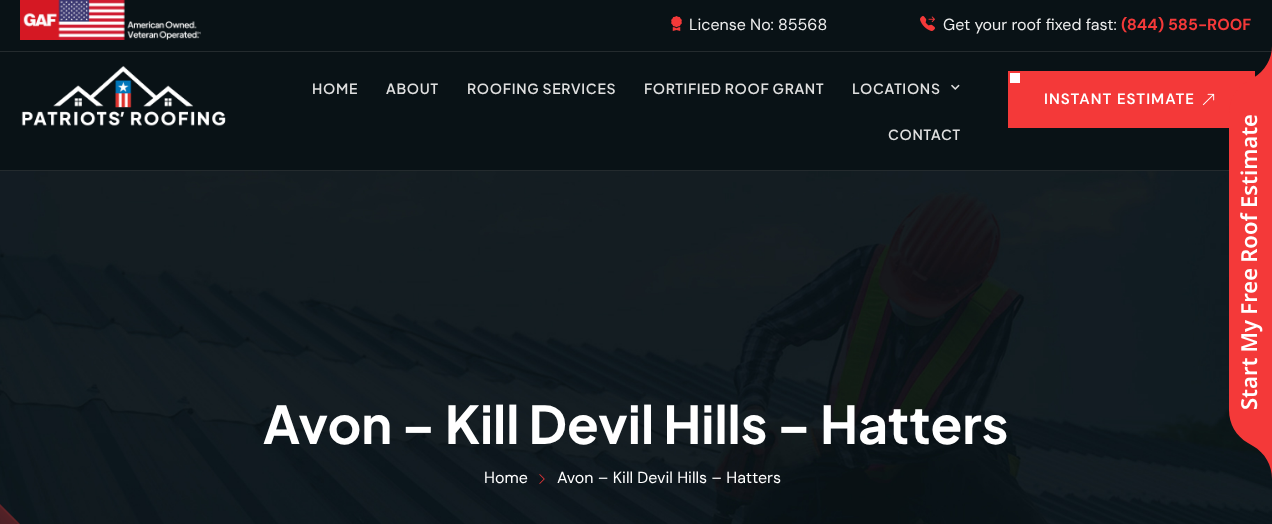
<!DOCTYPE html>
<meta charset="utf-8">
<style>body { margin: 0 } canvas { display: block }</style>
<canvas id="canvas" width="1272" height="524"></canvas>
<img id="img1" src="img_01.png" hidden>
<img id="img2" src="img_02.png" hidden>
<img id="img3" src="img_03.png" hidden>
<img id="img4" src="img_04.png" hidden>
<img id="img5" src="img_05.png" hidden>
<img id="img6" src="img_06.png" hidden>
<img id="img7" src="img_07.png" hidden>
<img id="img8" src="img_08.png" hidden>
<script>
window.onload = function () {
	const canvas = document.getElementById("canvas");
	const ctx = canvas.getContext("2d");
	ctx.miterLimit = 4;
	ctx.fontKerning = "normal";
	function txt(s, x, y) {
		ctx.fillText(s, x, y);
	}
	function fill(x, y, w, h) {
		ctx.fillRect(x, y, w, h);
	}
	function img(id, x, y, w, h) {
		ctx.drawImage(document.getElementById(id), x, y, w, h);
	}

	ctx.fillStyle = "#091216";
	fill(0, 0, 1272, 524);
	ctx.fillStyle = "#242B2E";
	fill(0, 51, 1272, 1);
	img("img1", 20, 0, 181, 40);
	img("img2", 671, 16, 11, 15);
	img("img3", 920, 16, 15, 15);
	fill(0, 170, 1229, 1);
	img("img4", 21, 66, 205, 60);
	img("img5", 951, 84, 9, 6);
	ctx.fillStyle = "#F43939";
	fill(1008, 71, 247, 57);
	ctx.fillStyle = "#FFFFFF";
	fill(1010, 73, 10, 10);
	img("img6", 1202, 93, 13, 13);
	img("img7", 0, 171, 1272, 353);
	ctx.fillStyle = "#F43939";
	fill(1229, 113, 43, 298);
	ctx.beginPath();
	ctx.moveTo(1272, 46);
	ctx.lineTo(1272, 114);
	ctx.lineTo(1229, 114);
	ctx.bezierCurveTo(1229, 100, 1236, 88, 1248, 81);
	ctx.lineTo(1253, 78);
	ctx.bezierCurveTo(1265, 71, 1272, 59, 1272, 46);
	ctx.closePath();
	ctx.fill();
	ctx.beginPath();
	ctx.moveTo(1229, 410);
	ctx.lineTo(1272, 410);
	ctx.lineTo(1272, 479);
	ctx.bezierCurveTo(1272, 465, 1265, 453, 1253, 446);
	ctx.lineTo(1248, 443);
	ctx.bezierCurveTo(1236, 436, 1229, 424, 1229, 410);
	ctx.closePath();
	ctx.fill("evenodd");
	img("img8", 539, 474, 6, 10);
	ctx.fillStyle = "rgba(248, 56, 57, 0.35)";
	ctx.beginPath();
	ctx.moveTo(-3, 501);
	ctx.lineTo(103, 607);
	ctx.lineTo(102, 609);
	ctx.lineTo(-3, 504);
	ctx.closePath();
	ctx.fill();
	ctx.font = "16px DM Sans";
	ctx.fillStyle = "#EEEEEE";
	txt("License No: 85568", 689, 30);
	txt("Get your roof fixed fast:", 943, 30);
	ctx.font = "bold 16px DM Sans";
	ctx.fillStyle = "#F43939";
	txt("(844) 585-ROOF", 1121, 30);
	ctx.letterSpacing = "0.7px";
	ctx.font = "600 14px Plus Jakarta Sans";
	ctx.fillStyle = "#DFDFDF";
	txt("HOME", 312, 94);
	txt("ABOUT", 386, 94);
	txt("ROOFING SERVICES", 467, 94);
	txt("FORTIFIED ROOF GRANT", 644, 94);
	txt("LOCATIONS", 852, 94);
	txt("CONTACT", 888, 140);
	ctx.letterSpacing = "1px";
	ctx.font = "600 15px DM Sans";
	ctx.fillStyle = "#FFFFFF";
	txt("INSTANT ESTIMATE", 1044, 104);
	ctx.letterSpacing = "0px";
	ctx.wordSpacing = "-0.5px";
	ctx.font = "600 22px Noto Sans";
	ctx.save();
	ctx.translate(1257, 410);
	ctx.rotate(-90 * Math.PI / 180);
	ctx.fillText("Start My Free Roof Estimate", 0, 0);
	ctx.restore();
	ctx.wordSpacing = "0px";
	ctx.font = "bold 52px Plus Jakarta Sans";
	txt("Avon – Kill Devil Hills – Hatters", 263, 444);
	ctx.font = "16px DM Sans";
	txt("Home", 484, 483);
	txt("Avon – Kill Devil Hills – Hatters", 557, 483);
};
</script>
